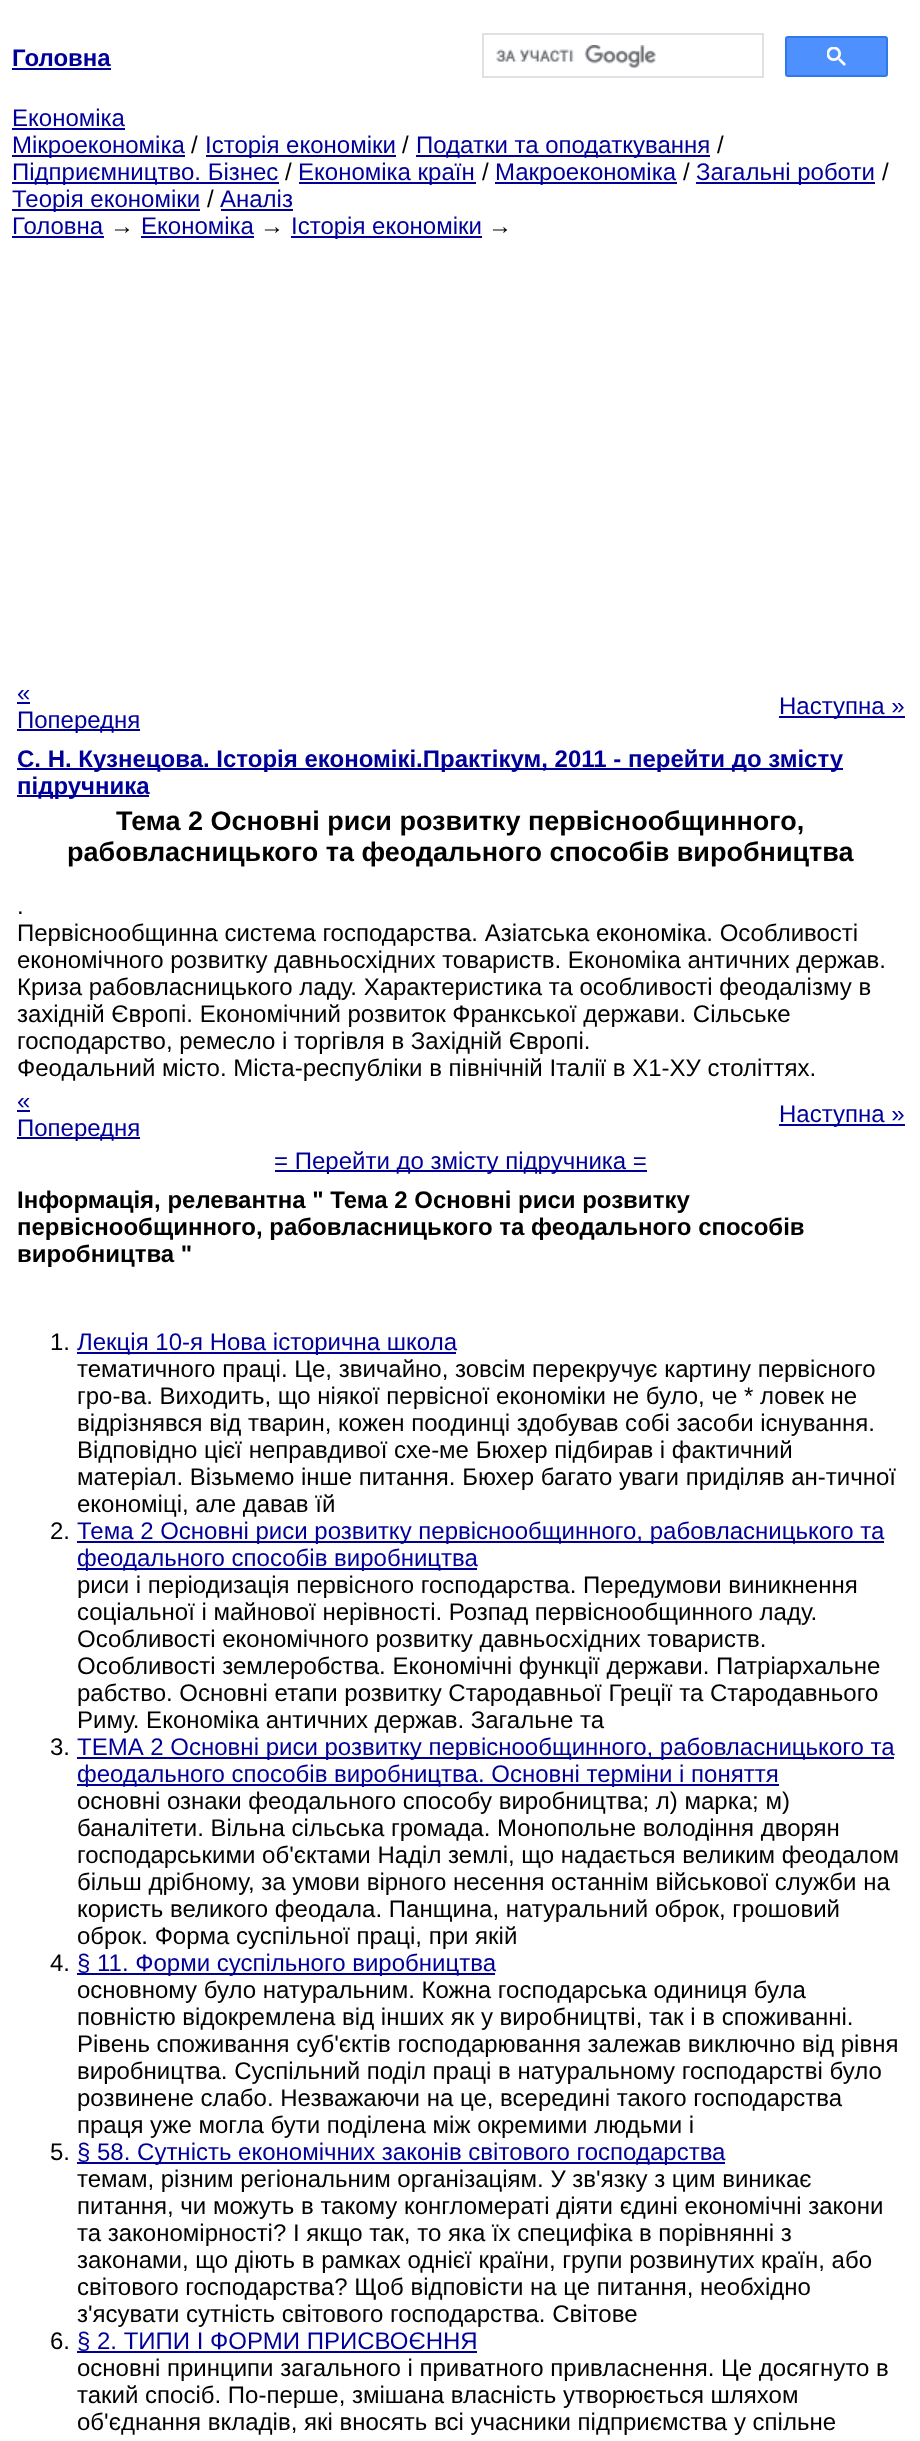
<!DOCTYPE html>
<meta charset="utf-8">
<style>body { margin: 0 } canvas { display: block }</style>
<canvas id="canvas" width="920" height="2441"></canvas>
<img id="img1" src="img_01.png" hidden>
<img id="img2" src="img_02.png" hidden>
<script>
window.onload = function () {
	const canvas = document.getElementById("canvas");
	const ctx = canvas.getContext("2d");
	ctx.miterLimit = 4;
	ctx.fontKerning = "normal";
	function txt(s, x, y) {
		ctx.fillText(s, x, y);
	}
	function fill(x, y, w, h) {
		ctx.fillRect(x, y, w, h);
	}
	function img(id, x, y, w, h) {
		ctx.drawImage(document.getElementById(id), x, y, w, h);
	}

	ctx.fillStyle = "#FFFFFF";
	fill(0, 0, 920, 2441);
	ctx.fillStyle = "#000099";
	fill(12, 68, 99, 2);
	ctx.strokeStyle = "#DFE1E5";
	ctx.lineWidth = 2;
	ctx.strokeRect(483, 34, 280, 43);
	img("img1", 496, 45, 160, 23);
	ctx.fillStyle = "#4D90FE";
	ctx.beginPath();
	ctx.roundRect(786, 37, 101, 39, 2);
	ctx.fill();
	ctx.strokeStyle = "#3079ED";
	ctx.stroke();
	img("img2", 827, 47, 19, 19);
	ctx.fillStyle = "#000099";
	fill(12, 128, 113, 2);
	fill(12, 155, 173, 2);
	fill(206, 155, 190, 2);
	fill(416, 155, 294, 2);
	fill(12, 182, 267, 2);
	fill(299, 182, 177, 2);
	fill(495, 182, 182, 2);
	fill(696, 182, 179, 2);
	fill(12, 209, 188, 2);
	fill(221, 209, 72, 2);
	fill(12, 236, 92, 2);
	fill(141, 236, 113, 2);
	fill(291, 236, 191, 2);
	fill(17, 702, 13, 2);
	fill(17, 729, 123, 2);
	fill(779, 716, 126, 2);
	fill(17, 768, 826, 2);
	fill(17, 795, 132, 2);
	fill(17, 1110, 13, 2);
	fill(17, 1137, 123, 2);
	fill(779, 1124, 126, 2);
	fill(275, 1170, 372, 2);
	fill(77, 1352, 379, 2);
	fill(77, 1541, 807, 2);
	fill(77, 1568, 400, 2);
	fill(77, 1757, 817, 2);
	fill(77, 1784, 702, 2);
	fill(77, 1973, 418, 2);
	fill(77, 2162, 648, 2);
	fill(77, 2351, 400, 2);
	ctx.font = "bold 24px Liberation Sans";
	txt("Головна", 12, 66);
	ctx.font = "24px Liberation Sans";
	txt("Економіка", 12, 126);
	txt("Мікроекономіка", 12, 153);
	ctx.fillStyle = "#000000";
	txt("/", 191, 153);
	ctx.fillStyle = "#000099";
	txt("Історія економіки", 205, 153);
	ctx.fillStyle = "#000000";
	txt("/", 402, 153);
	ctx.fillStyle = "#000099";
	txt("Податки та оподаткування", 416, 153);
	ctx.fillStyle = "#000000";
	txt("/", 717, 153);
	ctx.fillStyle = "#000099";
	txt("Підприємництво. Бізнес", 12, 180);
	ctx.fillStyle = "#000000";
	txt("/", 285, 180);
	ctx.fillStyle = "#000099";
	txt("Економіка країн", 298, 180);
	ctx.fillStyle = "#000000";
	txt("/", 482, 180);
	ctx.fillStyle = "#000099";
	txt("Макроекономіка", 495, 180);
	ctx.fillStyle = "#000000";
	txt("/", 683, 180);
	ctx.fillStyle = "#000099";
	txt("Загальні роботи", 696, 180);
	ctx.fillStyle = "#000000";
	txt("/", 882, 180);
	ctx.fillStyle = "#000099";
	txt("Теорія економіки", 12, 207);
	ctx.fillStyle = "#000000";
	txt("/", 207, 207);
	ctx.fillStyle = "#000099";
	txt("Аналіз", 220, 207);
	txt("Головна", 12, 234);
	ctx.fillStyle = "#000000";
	txt("→", 110, 234);
	ctx.fillStyle = "#000099";
	txt("Економіка", 141, 234);
	ctx.fillStyle = "#000000";
	txt("→", 260, 234);
	ctx.fillStyle = "#000099";
	txt("Історія економіки", 291, 234);
	ctx.fillStyle = "#000000";
	txt("→", 488, 234);
	ctx.fillStyle = "#000099";
	txt("«", 17, 701);
	txt("Попередня", 17, 728);
	txt("Наступна »", 779, 714);
	ctx.font = "bold 24px Liberation Sans";
	txt("C. Н. Кузнецова. Історія економікі.Практікум, 2011 - перейти до змісту", 17, 767);
	txt("підручника", 17, 794);
	ctx.font = "bold 27px Liberation Sans";
	ctx.fillStyle = "#000000";
	txt("Тема 2 Основні риси розвитку первіснообщинного,", 116, 830);
	txt("рабовласницького та феодального способів виробництва", 67, 861);
	ctx.font = "24px Liberation Sans";
	txt(".", 17, 914);
	txt("Первіснообщинна система господарства. Азіатська економіка. Особливості", 17, 941);
	txt("економічного розвитку давньосхідних товариств. Економіка античних держав.", 17, 968);
	txt("Криза рабовласницького ладу. Характеристика та особливості феодалізму в", 17, 995);
	txt("західній Європі. Економічний розвиток Франкської держави. Сільське", 17, 1022);
	txt("господарство, ремесло і торгівля в Західній Європі.", 17, 1049);
	txt("Феодальний місто. Міста-республіки в північній Італії в Х1-ХУ століттях.", 17, 1076);
	ctx.fillStyle = "#000099";
	txt("«", 17, 1109);
	txt("Попередня", 17, 1136);
	txt("Наступна »", 779, 1122);
	txt("= Перейти до змісту підручника =", 274, 1169);
	ctx.font = "bold 24px Liberation Sans";
	ctx.fillStyle = "#000000";
	txt("Інформація, релевантна \" Тема 2 Основні риси розвитку", 17, 1208);
	txt("первіснообщинного, рабовласницького та феодального способів", 17, 1235);
	txt("виробництва \"", 17, 1262);
	ctx.font = "24px Liberation Sans";
	txt("1.", 50, 1350);
	ctx.fillStyle = "#000099";
	txt("Лекція 10-я Нова історична школа", 77, 1350);
	ctx.fillStyle = "#000000";
	txt("тематичного праці. Це, звичайно, зовсім перекручує картину первісного", 77, 1377);
	txt("гро-ва. Виходить, що ніякої первісної економіки не було, че * ловек не", 77, 1404);
	txt("відрізнявся від тварин, кожен поодинці здобував собі засоби існування.", 77, 1431);
	txt("Відповідно цієї неправдивої схе-ме Бюхер підбирав і фактичний", 77, 1458);
	txt("матеріал. Візьмемо інше питання. Бюхер багато уваги приділяв ан-тичної", 77, 1485);
	txt("економіці, але давав їй", 77, 1512);
	txt("2.", 50, 1539);
	ctx.fillStyle = "#000099";
	txt("Тема 2 Основні риси розвитку первіснообщинного, рабовласницького та", 77, 1539);
	txt("феодального способів виробництва", 77, 1566);
	ctx.fillStyle = "#000000";
	txt("риси і періодизація первісного господарства. Передумови виникнення", 77, 1593);
	txt("соціальної і майнової нерівності. Розпад первіснообщинного ладу.", 77, 1620);
	txt("Особливості економічного розвитку давньосхідних товариств.", 77, 1647);
	txt("Особливості землеробства. Економічні функції держави. Патріархальне", 77, 1674);
	txt("рабство. Основні етапи розвитку Стародавньої Греції та Стародавнього", 77, 1701);
	txt("Риму. Економіка античних держав. Загальне та", 77, 1728);
	txt("3.", 50, 1755);
	ctx.fillStyle = "#000099";
	txt("ТЕМА 2 Основні риси розвитку первіснообщинного, рабовласницького та", 77, 1755);
	txt("феодального способів виробництва. Основні терміни і поняття", 77, 1782);
	ctx.fillStyle = "#000000";
	txt("основні ознаки феодального способу виробництва; л) марка; м)", 77, 1809);
	txt("баналітети. Вільна сільська громада. Монопольне володіння дворян", 77, 1836);
	txt("господарськими об'єктами Наділ землі, що надається великим феодалом", 77, 1863);
	txt("більш дрібному, за умови вірного несення останнім військової служби на", 77, 1890);
	txt("користь великого феодала. Панщина, натуральний оброк, грошовий", 77, 1917);
	txt("оброк. Форма суспільної праці, при якій", 77, 1944);
	txt("4.", 50, 1971);
	ctx.fillStyle = "#000099";
	txt("§ 11. Форми суспільного виробництва", 77, 1971);
	ctx.fillStyle = "#000000";
	txt("основному було натуральним. Кожна господарська одиниця була", 77, 1998);
	txt("повністю відокремлена від інших як у виробництві, так і в споживанні.", 77, 2025);
	txt("Рівень споживання суб'єктів господарювання залежав виключно від рівня", 77, 2052);
	txt("виробництва. Суспільний поділ праці в натуральному господарстві було", 77, 2079);
	txt("розвинене слабо. Незважаючи на це, всередині такого господарства", 77, 2106);
	txt("праця уже могла бути поділена між окремими людьми і", 77, 2133);
	txt("5.", 50, 2160);
	ctx.fillStyle = "#000099";
	txt("§ 58. Сутність економічних законів світового господарства", 77, 2160);
	ctx.fillStyle = "#000000";
	txt("темам, різним регіональним організаціям. У зв'язку з цим виникає", 77, 2187);
	txt("питання, чи можуть в такому конгломераті діяти єдині економічні закони", 77, 2214);
	txt("та закономірності? І якщо так, то яка їх специфіка в порівнянні з", 77, 2241);
	txt("законами, що діють в рамках однієї країни, групи розвинутих країн, або", 77, 2268);
	txt("світового господарства? Щоб відповісти на це питання, необхідно", 77, 2295);
	txt("з'ясувати сутність світового господарства. Світове", 77, 2322);
	txt("6.", 50, 2349);
	ctx.fillStyle = "#000099";
	txt("§ 2. ТИПИ І ФОРМИ ПРИСВОЄННЯ", 77, 2349);
	ctx.fillStyle = "#000000";
	txt("основні принципи загального і приватного привласнення. Це досягнуто в", 77, 2376);
	txt("такий спосіб. По-перше, змішана власність утворюється шляхом", 77, 2403);
	txt("об'єднання вкладів, які вносять всі учасники підприємства у спільне", 77, 2430);
};
</script>
